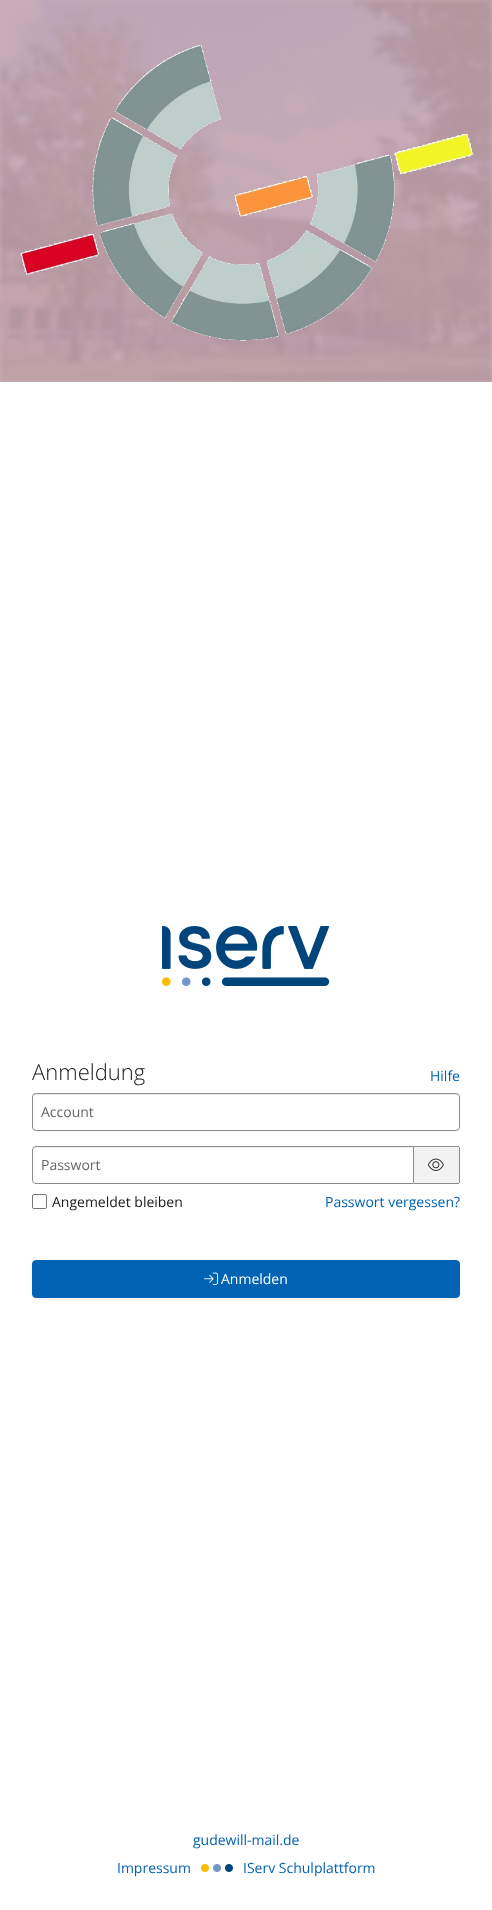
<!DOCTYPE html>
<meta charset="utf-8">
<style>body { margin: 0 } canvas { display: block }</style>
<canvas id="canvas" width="492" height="1910"></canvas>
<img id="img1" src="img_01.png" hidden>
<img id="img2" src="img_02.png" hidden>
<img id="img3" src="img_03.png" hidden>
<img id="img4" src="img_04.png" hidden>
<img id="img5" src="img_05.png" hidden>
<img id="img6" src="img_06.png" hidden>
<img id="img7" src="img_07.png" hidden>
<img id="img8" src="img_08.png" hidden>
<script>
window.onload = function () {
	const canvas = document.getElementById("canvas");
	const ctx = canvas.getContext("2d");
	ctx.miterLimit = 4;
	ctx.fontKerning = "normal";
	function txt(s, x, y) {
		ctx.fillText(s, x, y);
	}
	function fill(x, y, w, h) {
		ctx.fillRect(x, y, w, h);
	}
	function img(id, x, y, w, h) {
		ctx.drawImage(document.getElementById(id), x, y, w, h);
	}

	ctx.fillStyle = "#C9ABB7";
	fill(0, 0, 492, 1910);
	img("img1", 0, 0, 492, 382);
	img("img2", 20, 45, 454, 296);
	ctx.fillStyle = "#FFFFFF";
	fill(0, 382, 492, 1528);
	img("img3", 162, 926, 168, 60);
	ctx.fillStyle = "#ECECEC";
	ctx.beginPath();
	ctx.moveTo(36, 1095);
	ctx.lineTo(456, 1095);
	ctx.bezierCurveTo(458, 1095, 459, 1096, 459, 1098);
	ctx.bezierCurveTo(459, 1096, 458, 1094, 456, 1094);
	ctx.lineTo(36, 1094);
	ctx.bezierCurveTo(34, 1094, 33, 1096, 33, 1098);
	ctx.bezierCurveTo(33, 1096, 34, 1095, 36, 1095);
	ctx.closePath();
	ctx.fill();
	ctx.beginPath();
	ctx.roundRect(32.5, 1093.5, 427, 37, 3.5);
	ctx.strokeStyle = "#8C8C8C";
	ctx.stroke();
	ctx.beginPath();
	ctx.moveTo(36, 1148);
	ctx.lineTo(413, 1148);
	ctx.lineTo(413, 1147);
	ctx.lineTo(36, 1147);
	ctx.bezierCurveTo(34, 1147, 33, 1148, 33, 1150);
	ctx.lineTo(33, 1151);
	ctx.bezierCurveTo(33, 1149, 34, 1148, 36, 1148);
	ctx.closePath();
	ctx.fill();
	ctx.beginPath();
	ctx.roundRect(32.5, 1146.5, 381, 37, [3.5, 0, 0, 3.5]);
	ctx.stroke();
	ctx.fillStyle = "#F2F2F2";
	ctx.beginPath();
	ctx.roundRect(414, 1146, 46, 38, [0, 2, 2, 0]);
	ctx.fill();
	ctx.fillStyle = "#8C8C8C";
	fill(414, 1146, 45, 1);
	fill(459, 1147, 1, 36);
	fill(414, 1183, 45, 1);
	img("img4", 428, 1158, 16, 13);
	ctx.beginPath();
	ctx.roundRect(32.5, 1194.5, 14, 14, 1.5);
	ctx.strokeStyle = "#767676";
	ctx.stroke();
	ctx.fillStyle = "rgba(0, 0, 0, 0.08)";
	ctx.filter = "blur(1.5px)";
	ctx.beginPath();
	ctx.roundRect(32, 1261, 428, 38, 4);
	ctx.fill();
	ctx.filter = "none";
	ctx.fillStyle = "#0062B3";
	ctx.beginPath();
	ctx.roundRect(32.5, 1260.5, 427, 37, 3.5);
	ctx.fill();
	ctx.strokeStyle = "#0062B3";
	ctx.stroke();
	img("img5", 204, 1272, 14, 13);
	img("img6", 201, 1864, 8, 8);
	img("img7", 213, 1864, 8, 8);
	img("img8", 225, 1864, 8, 8);
	ctx.font = "300 22px Open Sans";
	ctx.fillStyle = "#1A1A1A";
	txt("Anmeldung", 32, 1080);
	ctx.font = "14px Open Sans";
	ctx.fillStyle = "#0062B3";
	txt("Hilfe", 430, 1081);
	ctx.fillStyle = "#666666";
	txt("Account", 41, 1117);
	txt("Passwort", 41, 1170);
	ctx.fillStyle = "#1A1A1A";
	txt("Angemeldet bleiben", 52, 1207);
	ctx.fillStyle = "#0062B3";
	txt("Passwort vergessen?", 325, 1207);
	ctx.fillStyle = "#FFFFFF";
	txt("Anmelden", 221, 1284);
	ctx.fillStyle = "#0062B3";
	txt("gudewill-mail.de", 193, 1845);
	txt("Impressum", 117, 1873);
	txt("IServ Schulplattform", 243, 1873);
};
</script>
